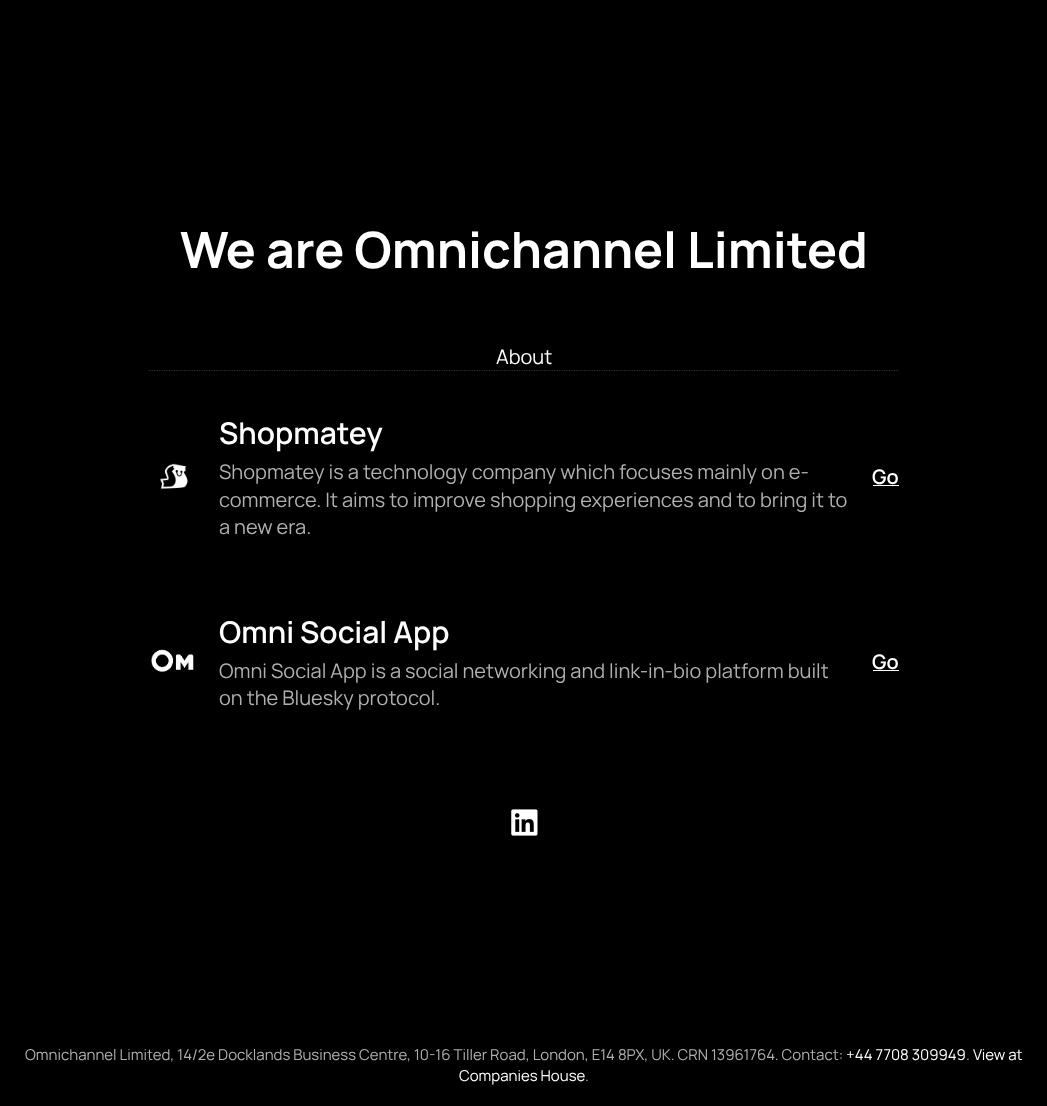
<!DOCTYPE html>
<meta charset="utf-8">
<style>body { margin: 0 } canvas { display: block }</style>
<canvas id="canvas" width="1047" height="1106"></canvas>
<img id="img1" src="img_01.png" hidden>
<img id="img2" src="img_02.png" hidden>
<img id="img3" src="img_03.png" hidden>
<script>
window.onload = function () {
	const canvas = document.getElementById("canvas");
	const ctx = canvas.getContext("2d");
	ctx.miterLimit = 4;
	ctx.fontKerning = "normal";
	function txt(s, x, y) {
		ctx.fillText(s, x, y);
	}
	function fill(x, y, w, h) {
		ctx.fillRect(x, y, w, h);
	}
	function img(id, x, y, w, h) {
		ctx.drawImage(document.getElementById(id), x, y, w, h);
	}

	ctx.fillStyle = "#000000";
	fill(0, 0, 1047, 1106);
	ctx.beginPath();
	ctx.moveTo(149, 370.5);
	ctx.lineTo(899, 370.5);
	ctx.strokeStyle = "#333333";
	ctx.lineWidth = 1.2;
	ctx.setLineDash([1.25, 1.25]);
	ctx.stroke();
	img("img1", 159, 463, 29, 26);
	ctx.fillStyle = "#FFFFFF";
	fill(873, 485, 26, 1);
	img("img2", 151, 649, 43, 23);
	fill(873, 670, 26, 1);
	img("img3", 511, 809, 27, 27);
	ctx.font = "bold 50px Manrope";
	txt("We are Omnichannel Limited", 180, 268);
	ctx.font = "20px Manrope";
	txt("About", 496, 364);
	ctx.font = "600 30px Manrope";
	txt("Shopmatey", 219, 444);
	ctx.font = "20px Manrope";
	ctx.fillStyle = "#B0B0B0";
	txt("Shopmatey is a technology company which focuses mainly on e-", 219, 479);
	txt("commerce. It aims to improve shopping experiences and to bring it to", 219, 507);
	txt("a new era.", 219, 534);
	ctx.font = "600 20px Manrope";
	ctx.fillStyle = "#FFFFFF";
	txt("Go", 872, 484);
	ctx.font = "600 30px Manrope";
	txt("Omni Social App", 219, 643);
	ctx.font = "20px Manrope";
	ctx.fillStyle = "#B0B0B0";
	txt("Omni Social App is a social networking and link-in-bio platform built", 219, 678);
	txt("on the Bluesky protocol.", 219, 705);
	ctx.font = "600 20px Manrope";
	ctx.fillStyle = "#FFFFFF";
	txt("Go", 872, 669);
	ctx.font = "15px Manrope";
	ctx.fillStyle = "#B0B0B0";
	txt("Omnichannel Limited, 14/2e Docklands Business Centre, 10-16 Tiller Road, London, E14 8PX, UK. CRN 13961764. Contact:", 25, 1060);
	ctx.fillStyle = "#FFFFFF";
	txt("+44 7708 309949", 846, 1060);
	ctx.fillStyle = "#B0B0B0";
	txt(".", 966, 1060);
	ctx.fillStyle = "#FFFFFF";
	txt("View at", 973, 1060);
	txt("Companies House", 459, 1081);
	ctx.fillStyle = "#B0B0B0";
	txt(".", 585, 1081);
};
</script>
